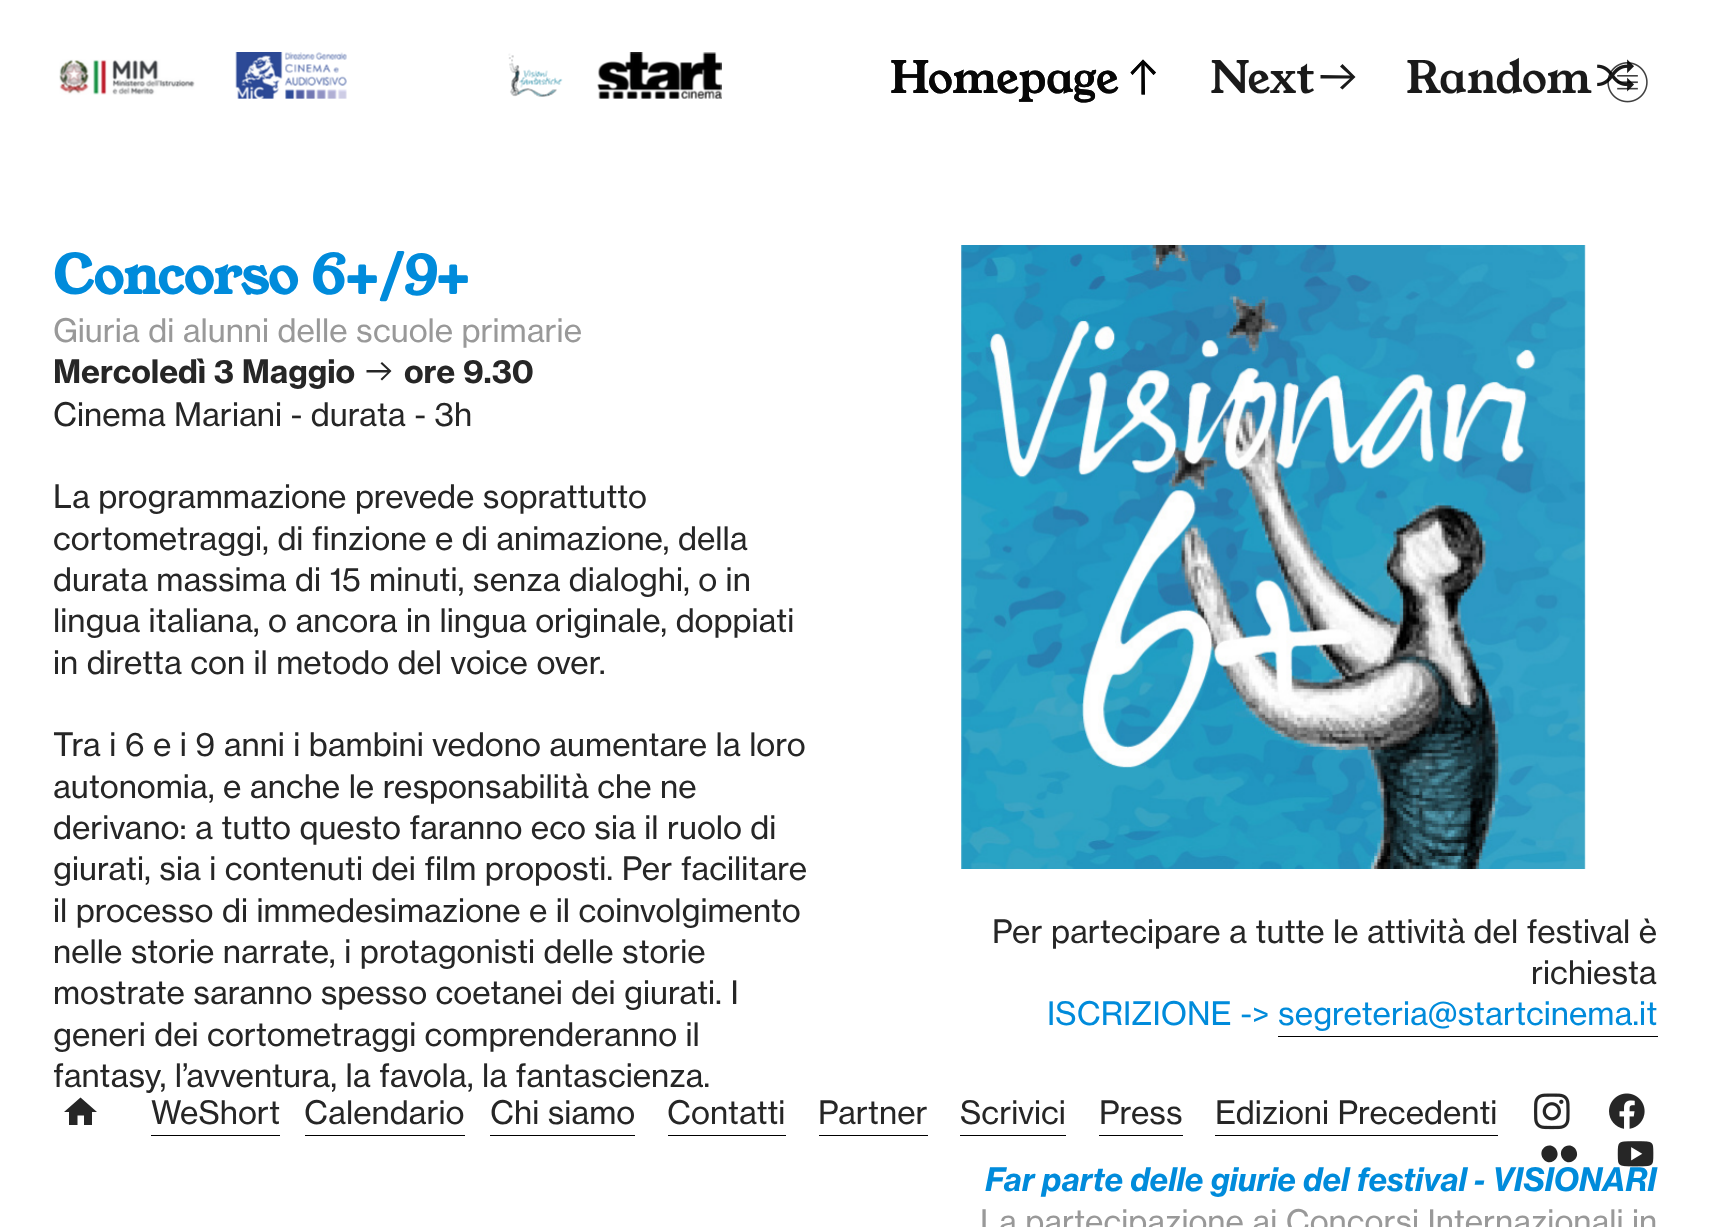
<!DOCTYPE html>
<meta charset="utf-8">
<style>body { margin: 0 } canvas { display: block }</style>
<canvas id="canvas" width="1710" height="1227"></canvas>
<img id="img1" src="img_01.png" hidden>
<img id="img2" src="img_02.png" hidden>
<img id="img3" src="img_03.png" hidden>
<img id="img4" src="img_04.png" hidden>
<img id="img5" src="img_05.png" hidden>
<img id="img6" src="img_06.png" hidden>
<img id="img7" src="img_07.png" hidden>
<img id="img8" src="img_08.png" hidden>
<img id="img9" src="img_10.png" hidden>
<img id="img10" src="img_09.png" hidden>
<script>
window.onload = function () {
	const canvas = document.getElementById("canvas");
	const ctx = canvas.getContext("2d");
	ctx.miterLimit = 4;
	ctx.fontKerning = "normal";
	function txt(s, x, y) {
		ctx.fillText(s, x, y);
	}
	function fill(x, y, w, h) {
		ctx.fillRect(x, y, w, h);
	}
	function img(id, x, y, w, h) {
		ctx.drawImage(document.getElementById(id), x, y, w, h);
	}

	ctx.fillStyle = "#FFFFFF";
	fill(0, 0, 1710, 1227);
	img("img1", 59, 59, 136, 36);
	img("img2", 235, 52, 112, 47);
	img("img3", 508, 53, 55, 44);
	img("img4", 597, 52, 125, 47);
	ctx.fillStyle = "#1A1A1A";
	ctx.beginPath();
	ctx.moveTo(1145, 94.5);
	ctx.lineTo(1144.5, 65);
	ctx.lineTo(1153.5, 75);
	ctx.lineTo(1156, 72.5);
	ctx.lineTo(1143, 59.5);
	ctx.lineTo(1130.5, 72.5);
	ctx.lineTo(1132.5, 75);
	ctx.lineTo(1141.5, 65);
	ctx.lineTo(1141.5, 94.5);
	ctx.closePath();
	ctx.fill();
	ctx.beginPath();
	ctx.moveTo(1320.5, 78.5);
	ctx.lineTo(1350, 78.5);
	ctx.lineTo(1340, 87.5);
	ctx.lineTo(1342.5, 89.5);
	ctx.lineTo(1355.5, 77);
	ctx.lineTo(1342.5, 64);
	ctx.lineTo(1340, 66.5);
	ctx.lineTo(1350, 75.5);
	ctx.lineTo(1320.5, 75);
	ctx.closePath();
	ctx.fill();
	img("img5", 1597, 59, 37, 33);
	ctx.fillStyle = "rgba(0, 0, 0, 0.9)";
	ctx.beginPath();
	ctx.moveTo(1145, 94.5);
	ctx.lineTo(1144.5, 65);
	ctx.lineTo(1153.5, 75);
	ctx.lineTo(1156, 72.5);
	ctx.lineTo(1143, 59.5);
	ctx.lineTo(1130.5, 72.5);
	ctx.lineTo(1132.5, 75);
	ctx.lineTo(1141.5, 65);
	ctx.lineTo(1141.5, 94.5);
	ctx.closePath();
	ctx.fill();
	ctx.fillStyle = "#262626";
	ctx.beginPath();
	ctx.moveTo(366.5, 372.5);
	ctx.lineTo(387.5, 372.5);
	ctx.lineTo(380.5, 379);
	ctx.lineTo(382, 380.5);
	ctx.lineTo(391.5, 371);
	ctx.lineTo(382, 362);
	ctx.lineTo(380.5, 363.5);
	ctx.lineTo(387.5, 370);
	ctx.lineTo(366.5, 370);
	ctx.closePath();
	ctx.fill();
	img("img6", 961, 245, 625, 624);
	ctx.fillStyle = "#000000";
	fill(1278, 1036, 380, 1);
	ctx.fillStyle = "#262626";
	ctx.beginPath();
	ctx.moveTo(77.5, 1115.5);
	ctx.lineTo(84, 1115.5);
	ctx.lineTo(84, 1125);
	ctx.lineTo(92, 1125);
	ctx.lineTo(92, 1112);
	ctx.lineTo(97, 1112);
	ctx.lineTo(80.5, 1097.5);
	ctx.lineTo(64, 1112);
	ctx.lineTo(69, 1112);
	ctx.lineTo(69, 1125);
	ctx.lineTo(77.5, 1125);
	ctx.closePath();
	ctx.fill();
	ctx.fillStyle = "#000000";
	fill(151, 1135, 129, 1);
	fill(305, 1135, 160, 1);
	fill(490, 1135, 145, 1);
	fill(668, 1135, 118, 1);
	fill(819, 1135, 109, 1);
	fill(960, 1135, 106, 1);
	fill(1099, 1135, 84, 1);
	fill(1215, 1135, 283, 1);
	img("img7", 1534, 1093, 36, 37);
	img("img8", 1609, 1093, 36, 36);
	ctx.fillStyle = "#262626";
	ctx.beginPath();
	ctx.moveTo(1545.5, 1146.5);
	ctx.bezierCurveTo(1554.5, 1141.5, 1563, 1155, 1553.5, 1161);
	ctx.bezierCurveTo(1545, 1166.5, 1536, 1152.5, 1545.5, 1146.5);
	ctx.closePath();
	ctx.moveTo(1565, 1146.5);
	ctx.bezierCurveTo(1574, 1141.5, 1582.5, 1155, 1573, 1161);
	ctx.bezierCurveTo(1564.5, 1166.5, 1555.5, 1152.5, 1565, 1146.5);
	ctx.closePath();
	ctx.fill();
	img("img9", 1607, 62, 41, 41);
	ctx.font = "44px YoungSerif";
	ctx.fillStyle = "#1A1A1A";
	txt("Homepage", 890, 93);
	txt("Next", 1210, 93);
	txt("Random", 1406, 93);
	ctx.fillStyle = "#070707";
	txt("Homepage", 890, 93);
	ctx.font = "bold 53px YoungSerif";
	ctx.fillStyle = "#008BDB";
	txt("Concorso 6+/9+", 53, 294);
	ctx.font = "31.8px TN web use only";
	ctx.fillStyle = "#999999";
	txt("Giuria di alunni delle scuole primarie", 53, 342);
	ctx.font = "bold 31.8px TN web use only";
	ctx.fillStyle = "#262626";
	txt("Mercoledì 3 Maggio", 53, 383);
	txt("ore 9.30", 404, 383);
	ctx.font = "31.8px TN web use only";
	txt("Cinema Mariani - durata - 3h", 53, 426);
	txt("La programmazione prevede soprattutto", 53, 508);
	txt("cortometraggi, di finzione e di animazione, della", 53, 550);
	txt("durata massima di 15 minuti, senza dialoghi, o in", 53, 591);
	txt("lingua italiana, o ancora in lingua originale, doppiati", 53, 632);
	txt("in diretta con il metodo del voice over.", 53, 674);
	txt("Tra i 6 e i 9 anni i bambini vedono aumentare la loro", 53, 756);
	txt("autonomia, e anche le responsabilità che ne", 53, 798);
	txt("derivano: a tutto questo faranno eco sia il ruolo di", 53, 839);
	txt("giurati, sia i contenuti dei film proposti. Per facilitare", 53, 880);
	txt("il processo di immedesimazione e il coinvolgimento", 53, 922);
	txt("nelle storie narrate, i protagonisti delle storie", 53, 963);
	txt("mostrate saranno spesso coetanei dei giurati. I", 53, 1004);
	txt("generi dei cortometraggi comprenderanno il", 53, 1046);
	txt("fantasy, l’avventura, la favola, la fantascienza.", 53, 1087);
	txt("Per partecipare a tutte le attività del festival è", 992, 943);
	txt("richiesta", 1531, 984);
	ctx.fillStyle = "#008BDB";
	txt("ISCRIZIONE -> segreteria@startcinema.it", 1047, 1025);
	ctx.font = "italic bold 31.8px TN web use only";
	txt("Far parte delle giurie del festival - VISIONARI", 985, 1191);
	ctx.font = "31.8px TN web use only";
	ctx.fillStyle = "#999999";
	txt("La partecipazione ai Concorsi Internazionali in", 980, 1233);
	ctx.fillStyle = "#262626";
	txt("WeShort", 151, 1124);
	txt("Calendario", 304, 1124);
	txt("Chi siamo", 490, 1124);
	txt("Contatti", 667, 1124);
	txt("Partner", 818, 1124);
	txt("Scrivici", 960, 1124);
	txt("Press", 1099, 1124);
	txt("Edizioni Precedenti", 1215, 1124);
	img("img10", 1617, 1141, 37, 26);
};
</script>
